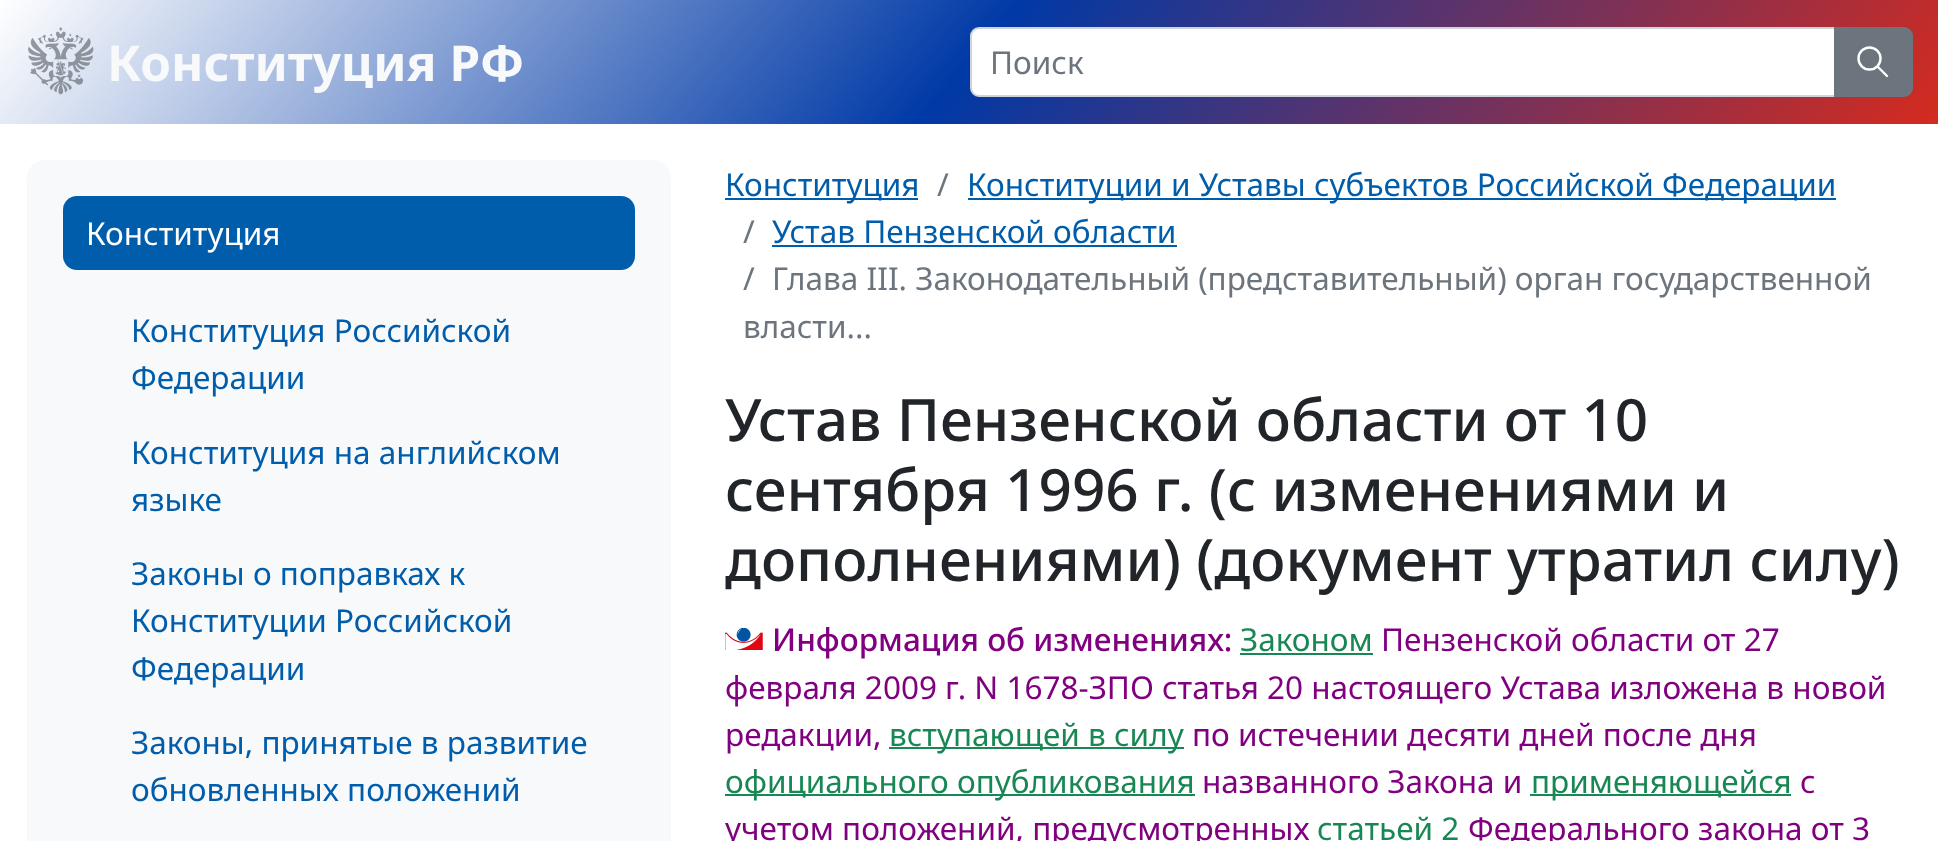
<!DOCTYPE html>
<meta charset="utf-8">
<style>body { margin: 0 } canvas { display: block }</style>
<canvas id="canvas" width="1938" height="841"></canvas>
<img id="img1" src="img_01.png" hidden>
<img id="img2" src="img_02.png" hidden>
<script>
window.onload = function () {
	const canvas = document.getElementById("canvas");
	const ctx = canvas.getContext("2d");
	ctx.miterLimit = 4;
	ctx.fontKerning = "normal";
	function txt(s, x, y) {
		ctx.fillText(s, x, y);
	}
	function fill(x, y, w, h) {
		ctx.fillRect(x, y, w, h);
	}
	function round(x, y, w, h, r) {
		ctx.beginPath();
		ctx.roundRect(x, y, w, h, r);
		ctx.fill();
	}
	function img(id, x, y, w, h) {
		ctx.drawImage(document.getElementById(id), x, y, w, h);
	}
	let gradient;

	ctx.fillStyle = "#FFFFFF";
	fill(0, 0, 1938, 841);
	gradient = ctx.createLinearGradient(370, -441, 1569, 565);
	gradient.addColorStop(0, "#FFFFFF");
	gradient.addColorStop(0.5, "#0039A6");
	gradient.addColorStop(1, "#D52B1E");
	ctx.fillStyle = gradient;
	fill(0, 0, 1938, 124);
	img("img1", 28, 27, 66, 68);
	ctx.fillStyle = "#FFFFFF";
	ctx.beginPath();
	ctx.roundRect(971, 28, 864, 68, [8, 0, 0, 8]);
	ctx.fill();
	ctx.strokeStyle = "#CED4DA";
	ctx.lineWidth = 2;
	ctx.stroke();
	ctx.fillStyle = "#6C757D";
	ctx.beginPath();
	ctx.roundRect(1835, 28, 77, 68, [0, 8, 8, 0]);
	ctx.fill();
	ctx.strokeStyle = "#6C757D";
	ctx.stroke();
	ctx.beginPath();
	ctx.arc(1869.5, 58.5, 11, 0, Math.PI * 2);
	ctx.strokeStyle = "#FFFFFF";
	ctx.lineWidth = 2.4;
	ctx.stroke();
	ctx.beginPath();
	ctx.moveTo(1887, 76);
	ctx.lineTo(1877.5, 66.5);
	ctx.lineCap = "round";
	ctx.lineJoin = "round";
	ctx.stroke();
	ctx.fillStyle = "#F8F9FA";
	round(27, 160, 644, 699, 18);
	ctx.fillStyle = "#005DAB";
	round(63, 196, 572, 74, 14);
	fill(725, 198, 193, 2);
	fill(968, 198, 868, 2);
	fill(772, 245, 405, 2);
	img("img2", 725, 628, 38, 22);
	ctx.fillStyle = "#198754";
	fill(1240, 653, 133, 2);
	fill(889, 747, 295, 2);
	fill(725, 794, 470, 2);
	fill(1530, 794, 261, 2);
	ctx.font = "bold 49.5px Noto Sans";
	ctx.fillStyle = "#F8F9FA";
	txt("Конституция РФ", 107, 81);
	ctx.font = "31.5px Noto Sans";
	ctx.fillStyle = "#6C757D";
	txt("Поиск", 990, 74);
	ctx.fillStyle = "#FFFFFF";
	txt("Конституция", 86, 245);
	ctx.fillStyle = "#005DAB";
	txt("Конституция Российской", 131, 342);
	txt("Федерации", 131, 389);
	txt("Конституция на английском", 131, 464);
	txt("языке", 131, 511);
	txt("Законы о поправках к", 131, 585);
	txt("Конституции Российской", 131, 632);
	txt("Федерации", 131, 680);
	txt("Законы, принятые в развитие", 131, 754);
	txt("обновленных положений", 131, 801);
	txt("Конституция", 725, 196);
	ctx.fillStyle = "#6C757D";
	txt("/", 937, 196);
	ctx.fillStyle = "#005DAB";
	txt("Конституции и Уставы субъектов Российской Федерации", 967, 196);
	ctx.fillStyle = "#6C757D";
	txt("/", 743, 243);
	ctx.fillStyle = "#005DAB";
	txt("Устав Пензенской области", 772, 243);
	ctx.fillStyle = "#6C757D";
	txt("/", 743, 290);
	txt("Глава III. Законодательный (представительный) орган государственной", 772, 290);
	txt("власти...", 743, 338);
	ctx.font = "500 58.4px Noto Sans";
	ctx.fillStyle = "#212529";
	txt("Устав Пензенской области от 10", 725, 441);
	txt("сентября 1996 г. (с изменениями и", 725, 511);
	txt("дополнениями) (документ утратил силу)", 725, 581);
	ctx.font = "500 31.5px Noto Sans";
	ctx.fillStyle = "#800080";
	txt("Информация об изменениях:", 772, 651);
	ctx.font = "31.5px Noto Sans";
	ctx.fillStyle = "#198754";
	txt("Законом", 1240, 651);
	ctx.fillStyle = "#800080";
	txt("Пензенской области от 27", 1381, 651);
	txt("февраля 2009 г. N 1678-ЗПО статья 20 настоящего Устава изложена в новой", 725, 699);
	txt("редакции,", 725, 746);
	ctx.fillStyle = "#198754";
	txt("вступающей в силу", 889, 746);
	ctx.fillStyle = "#800080";
	txt("по истечении десяти дней после дня", 1192, 746);
	ctx.fillStyle = "#198754";
	txt("официального опубликования", 725, 793);
	ctx.fillStyle = "#800080";
	txt("названного Закона и", 1202, 793);
	ctx.fillStyle = "#198754";
	txt("применяющейся", 1531, 793);
	ctx.fillStyle = "#800080";
	txt("с", 1800, 793);
	txt("учетом положений, предусмотренных", 725, 840);
	ctx.fillStyle = "#198754";
	txt("статьей 2", 1317, 840);
	ctx.fillStyle = "#800080";
	txt("Федерального закона от 3", 1468, 840);
};
</script>
